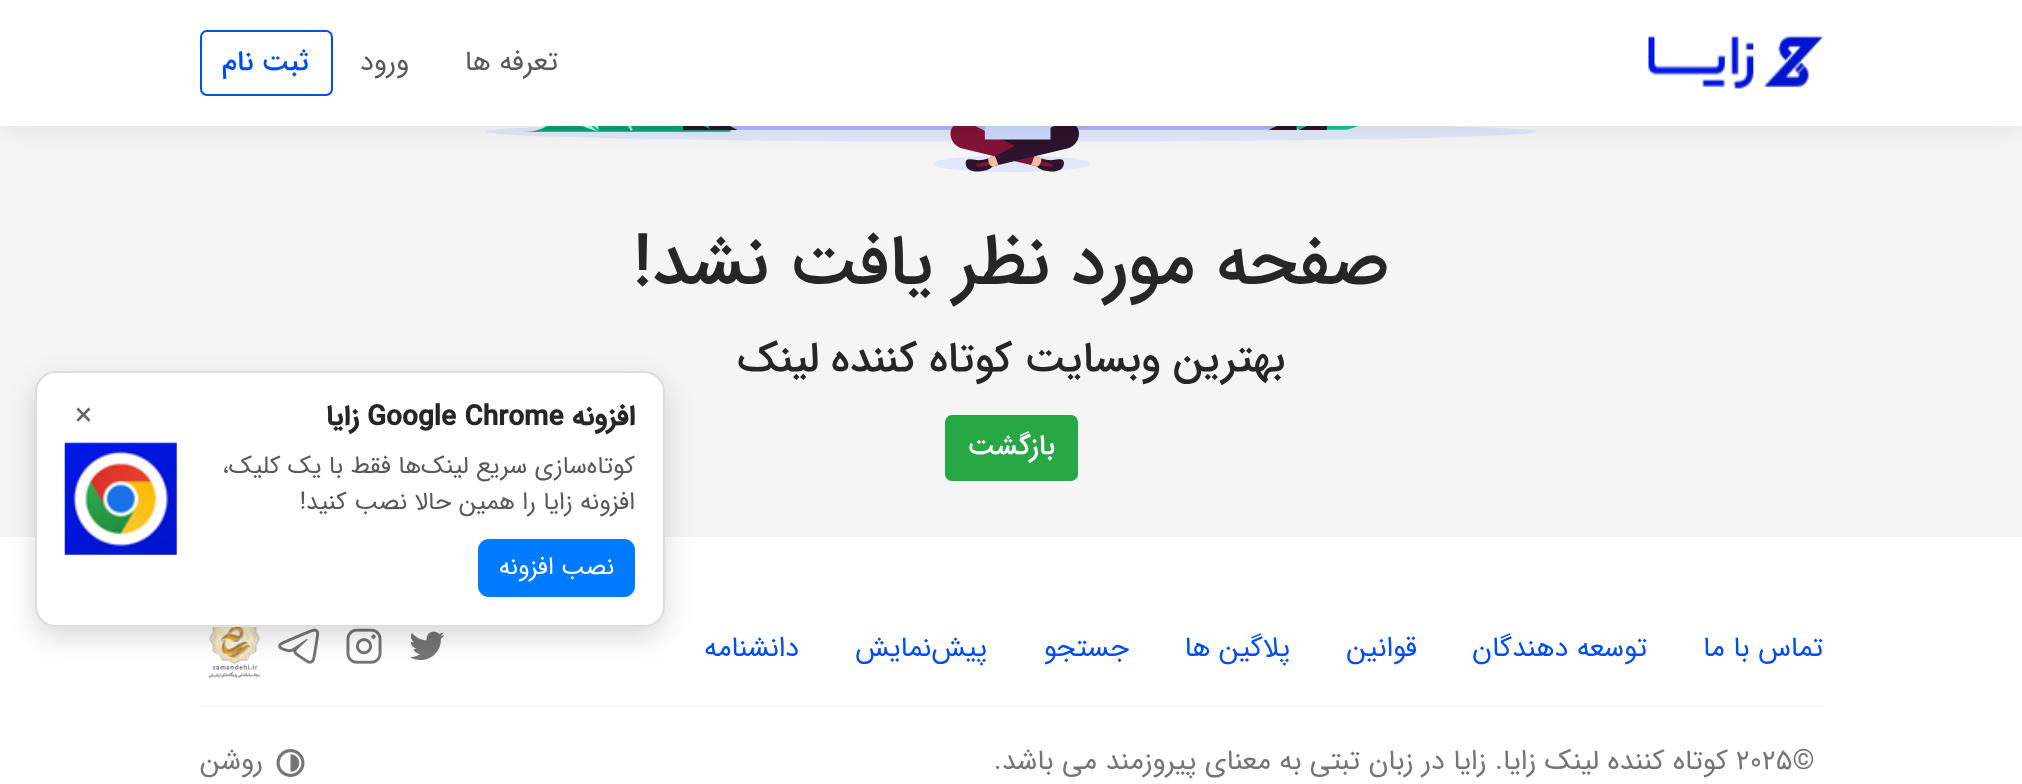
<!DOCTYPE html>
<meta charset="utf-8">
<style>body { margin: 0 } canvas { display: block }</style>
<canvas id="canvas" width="2022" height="784"></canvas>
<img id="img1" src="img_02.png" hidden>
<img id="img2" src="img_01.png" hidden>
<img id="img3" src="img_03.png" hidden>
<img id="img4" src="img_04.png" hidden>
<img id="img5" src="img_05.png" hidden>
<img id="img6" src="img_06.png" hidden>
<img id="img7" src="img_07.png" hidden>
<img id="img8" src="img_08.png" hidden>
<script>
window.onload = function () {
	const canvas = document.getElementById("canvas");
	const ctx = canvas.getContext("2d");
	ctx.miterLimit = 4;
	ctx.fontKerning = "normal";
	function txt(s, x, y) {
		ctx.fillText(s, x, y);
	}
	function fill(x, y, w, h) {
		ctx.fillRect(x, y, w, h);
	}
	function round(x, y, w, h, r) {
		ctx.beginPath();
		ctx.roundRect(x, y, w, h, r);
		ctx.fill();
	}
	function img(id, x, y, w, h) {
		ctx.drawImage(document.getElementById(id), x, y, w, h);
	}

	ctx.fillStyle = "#FFFFFF";
	fill(0, 0, 2022, 784);
	ctx.fillStyle = "#F5F5F5";
	fill(0, 126, 2022, 411);
	img("img1", 487, 126, 1049, 47);
	ctx.fillStyle = "rgba(0, 0, 0, 0.1)";
	ctx.filter = "blur(14px)";
	ctx.beginPath();
	ctx.rect(0, 0, 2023, 126);
	ctx.fill();
	ctx.filter = "none";
	ctx.fillStyle = "#FFFFFF";
	fill(0, 0, 2022, 126);
	img("img2", 1648, 35, 176, 54);
	ctx.beginPath();
	ctx.roundRect(201, 31, 131, 64, 6);
	ctx.strokeStyle = "#004EF3";
	ctx.lineWidth = 2;
	ctx.stroke();
	ctx.fillStyle = "#28A745";
	ctx.beginPath();
	ctx.roundRect(946, 416, 131, 64, 6);
	ctx.fill();
	ctx.strokeStyle = "#28A745";
	ctx.stroke();
	img("img3", 409, 631, 36, 29);
	img("img4", 346, 628, 36, 36);
	img("img5", 278, 628, 42, 36);
	img("img6", 208, 627, 53, 52);
	ctx.fillStyle = "#F5F5F5";
	fill(200, 705, 1624, 2);
	img("img7", 276, 749, 29, 28);
	ctx.fillStyle = "rgba(0, 0, 0, 0.15)";
	ctx.filter = "blur(14px)";
	ctx.beginPath();
	ctx.roundRect(35, 382, 630, 255, 21);
	ctx.fill();
	ctx.filter = "none";
	ctx.fillStyle = "#FFFFFF";
	ctx.beginPath();
	ctx.roundRect(36, 372, 628, 254, 20);
	ctx.fill();
	ctx.strokeStyle = "#DDDDDD";
	ctx.stroke();
	ctx.fillStyle = "#007BFF";
	round(478, 539, 157, 58, 11);
	img("img8", 64, 442, 113, 113);
	ctx.direction = "rtl";
	ctx.font = "28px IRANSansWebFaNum";
	ctx.fillStyle = "#595959";
	txt("تعرفه ها", 558, 70);
	txt("ورود", 409, 70);
	ctx.font = "500 28px IRANSansWebFaNum";
	ctx.fillStyle = "#004EF3";
	txt("ثبت نام", 309, 70);
	ctx.font = "500 70px IRANSansWebFaNum";
	ctx.fillStyle = "#262626";
	txt("صفحه مورد نظر یافت نشد!", 1389, 283);
	ctx.font = "500 42px IRANSansWebFaNum";
	txt("بهترین وبسایت کوتاه کننده لینک", 1285, 371);
	ctx.font = "500 28px IRANSansWebFaNum";
	ctx.fillStyle = "#FFFFFF";
	txt("بازگشت", 1055, 454);
	ctx.font = "28px IRANSansWebFaNum";
	ctx.fillStyle = "#004EF3";
	txt("تماس با ما", 1823, 656);
	txt("توسعه دهندگان", 1647, 656);
	txt("قوانین", 1417, 656);
	txt("پلاگین ها", 1290, 656);
	txt("جستجو", 1129, 656);
	txt("پیش‌نمایش", 987, 656);
	txt("دانشنامه", 799, 656);
	ctx.direction = "ltr";
	ctx.fillStyle = "#757575";
	txt("2025©", 1736, 769);
	ctx.direction = "rtl";
	txt("کوتاه کننده لینک زایا. زایا در زبان تبتی به معنای پیروزمند می باشد.", 1728, 769);
	txt("روشن", 263, 769);
	ctx.font = "bold 28px IRANSansWebFaNum";
	ctx.fillStyle = "#262626";
	txt("افزونه", 635, 425);
	ctx.direction = "ltr";
	txt("Google Chrome", 367, 425);
	ctx.direction = "rtl";
	txt("زایا", 359, 425);
	ctx.font = "24.5px IRANSansWebFaNum";
	ctx.fillStyle = "#595959";
	txt("کوتاه‌سازی سریع لینک‌ها فقط با یک کلیک،", 635, 473);
	txt("افزونه زایا را همین حالا نصب کنید!", 635, 509);
	ctx.fillStyle = "#FFFFFF";
	txt("نصب افزونه", 614, 574);
	ctx.direction = "ltr";
	ctx.font = "32px IRANSansWebFaNum";
	ctx.fillStyle = "#666666";
	txt("×", 75, 425);
};
</script>
